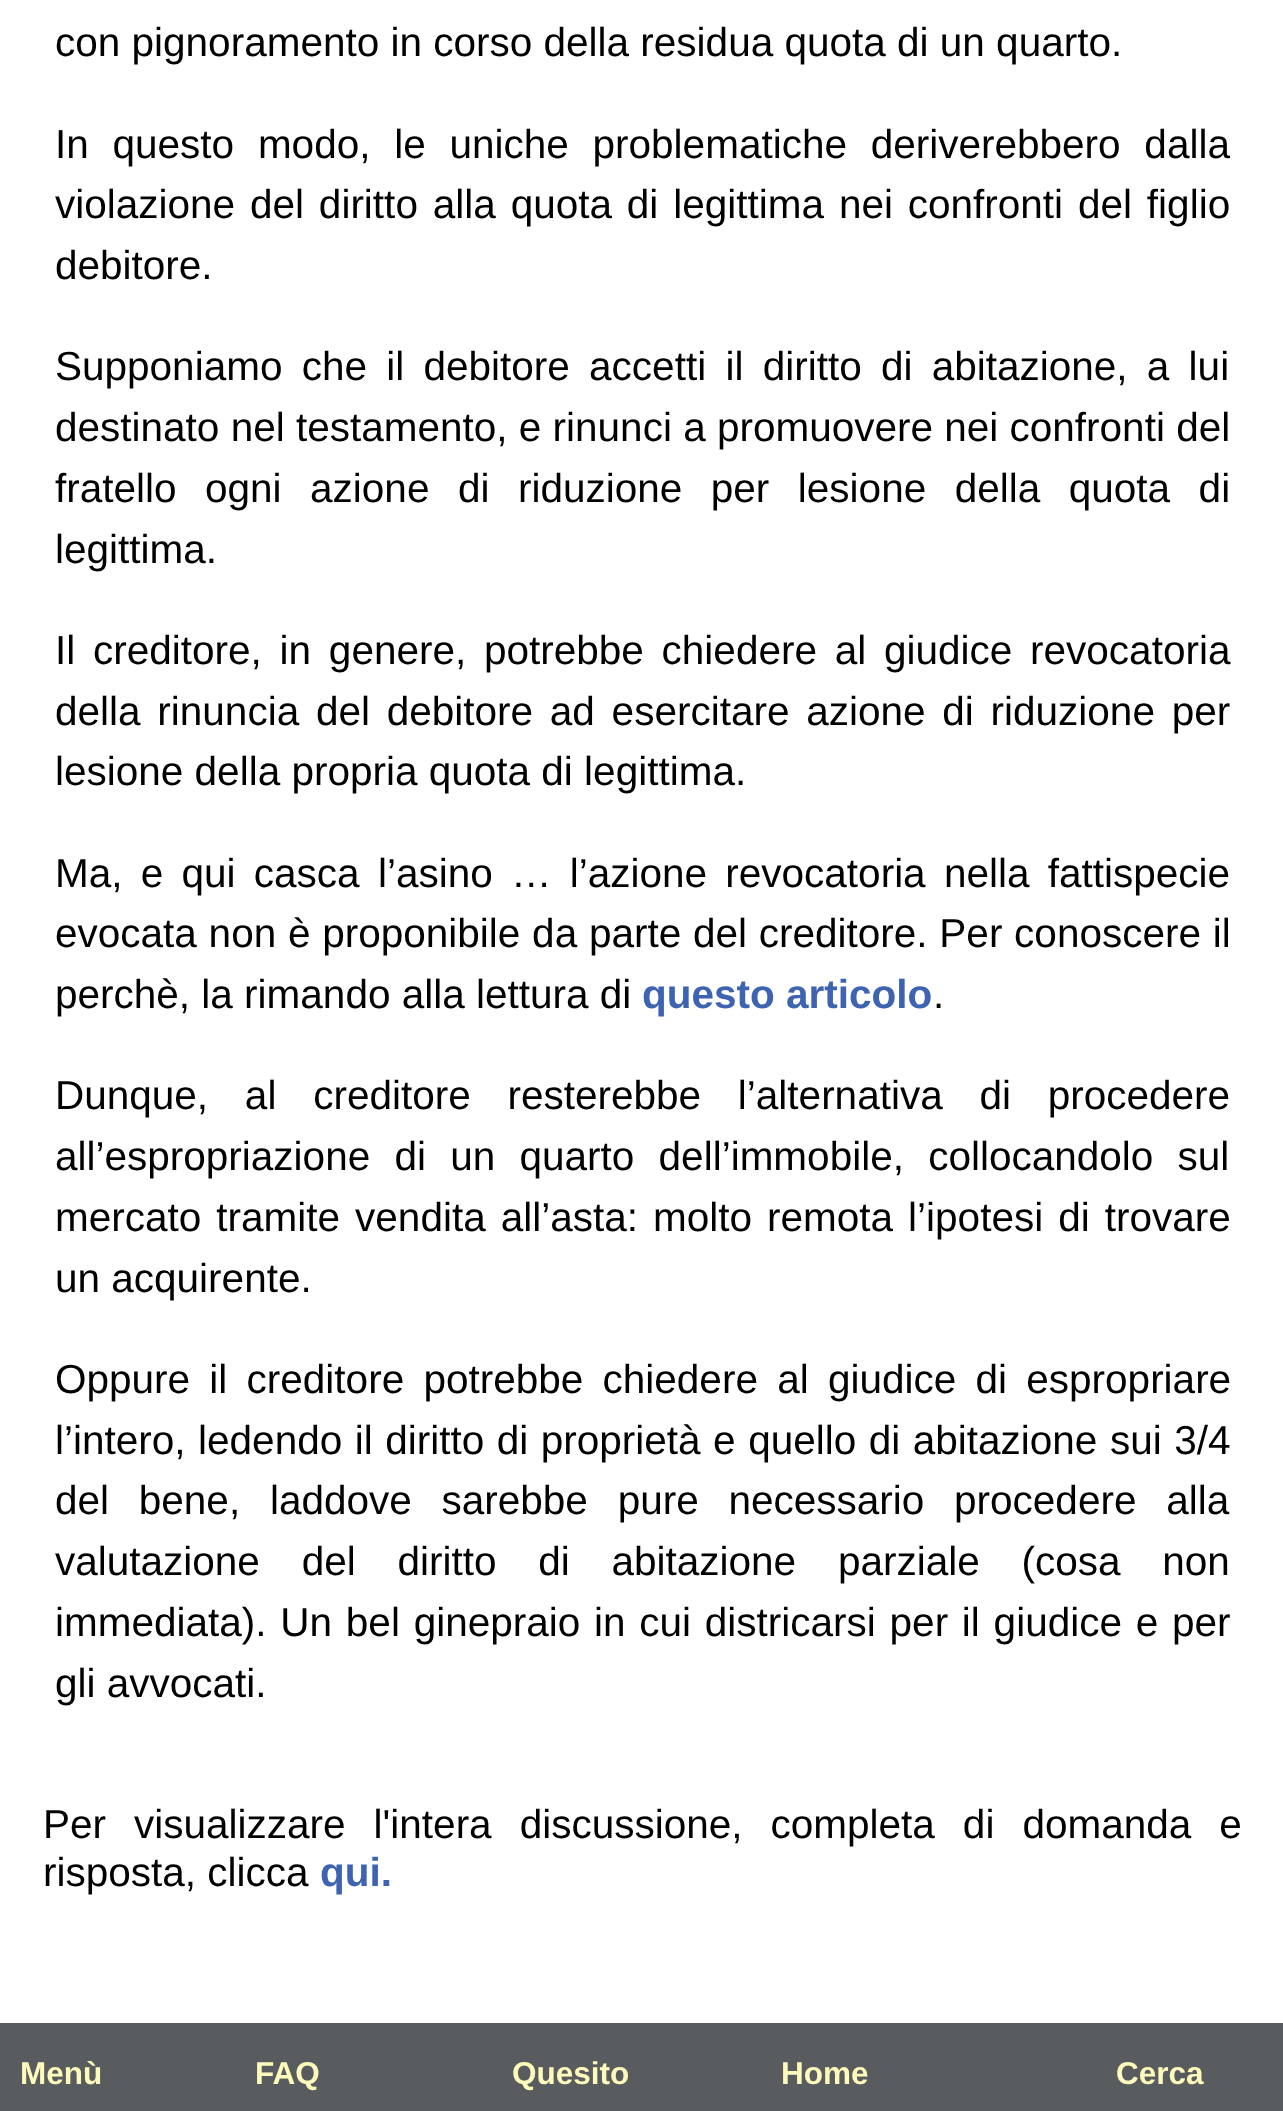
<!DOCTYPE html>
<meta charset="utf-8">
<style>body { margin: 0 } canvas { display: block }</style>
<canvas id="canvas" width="1283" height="2111"></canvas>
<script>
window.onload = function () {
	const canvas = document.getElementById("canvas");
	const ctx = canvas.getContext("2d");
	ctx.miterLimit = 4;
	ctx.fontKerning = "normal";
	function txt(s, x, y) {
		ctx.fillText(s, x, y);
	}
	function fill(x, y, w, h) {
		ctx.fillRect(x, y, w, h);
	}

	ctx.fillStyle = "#FFFFFF";
	fill(0, 0, 1283, 2111);
	ctx.fillStyle = "#595C5E";
	fill(0, 2023, 1283, 88);
	ctx.font = "40.5px Liberation Sans";
	ctx.fillStyle = "#000000";
	txt("con pignoramento in corso della residua quota di un quarto.", 55, 56);
	ctx.wordSpacing = "12.5px";
	txt("In questo modo, le uniche problematiche deriverebbero dalla", 55, 158);
	ctx.wordSpacing = "3.6px";
	txt("violazione del diritto alla quota di legittima nei confronti del figlio", 55, 218);
	ctx.wordSpacing = "0px";
	txt("debitore.", 55, 279);
	ctx.wordSpacing = "8px";
	txt("Supponiamo che il debitore accetti il diritto di abitazione, a lui", 55, 380);
	ctx.wordSpacing = "0px";
	txt("destinato nel testamento, e rinunci a promuovere nei confronti del", 55, 441);
	txt("fratello", 55, 502);
	ctx.wordSpacing = "17.25px";
	txt("ogni azione di riduzione per lesione della quota di", 205, 502);
	ctx.wordSpacing = "0px";
	txt("legittima.", 55, 563);
	ctx.wordSpacing = "6.5px";
	txt("Il creditore, in genere, potrebbe chiedere al giudice revocatoria", 55, 664);
	ctx.wordSpacing = "5.5px";
	txt("della rinuncia del debitore ad esercitare azione di riduzione per", 55, 725);
	ctx.wordSpacing = "0px";
	txt("lesione della propria quota di legittima.", 55, 785);
	ctx.wordSpacing = "7px";
	txt("Ma, e qui casca l’asino … l’azione revocatoria nella fattispecie", 55, 887);
	ctx.wordSpacing = "0.5px";
	txt("evocata non è proponibile da parte del creditore. Per conoscere il", 55, 947);
	ctx.wordSpacing = "0px";
	txt("perchè, la rimando alla lettura di", 55, 1008);
	ctx.font = "bold 40.5px Liberation Sans";
	ctx.fillStyle = "#3E63B1";
	txt("questo articolo", 642, 1008);
	ctx.font = "40.5px Liberation Sans";
	ctx.fillStyle = "#000000";
	txt(".", 933, 1008);
	ctx.wordSpacing = "25.5px";
	txt("Dunque, al creditore resterebbe l’alternativa di procedere", 55, 1109);
	ctx.wordSpacing = "13px";
	txt("all’espropriazione di un quarto dell’immobile, collocandolo sul", 55, 1170);
	ctx.wordSpacing = "3.75px";
	txt("mercato tramite vendita all’asta: molto remota l’ipotesi di trovare", 55, 1231);
	ctx.wordSpacing = "0px";
	txt("un acquirente.", 55, 1292);
	ctx.wordSpacing = "8px";
	txt("Oppure il creditore potrebbe chiedere al giudice di espropriare", 55, 1393);
	ctx.wordSpacing = "1.25px";
	txt("l’intero, ledendo il diritto di proprietà e quello di abitazione sui 3/4", 55, 1454);
	ctx.wordSpacing = "18.5px";
	txt("del bene, laddove sarebbe pure necessario procedere alla", 55, 1514);
	ctx.wordSpacing = "30.5px";
	txt("valutazione del diritto di abitazione parziale (cosa non", 55, 1575);
	ctx.wordSpacing = "2.5px";
	txt("immediata). Un bel ginepraio in cui districarsi per il giudice e per", 55, 1636);
	ctx.wordSpacing = "0px";
	txt("gli avvocati.", 55, 1697);
	ctx.wordSpacing = "16.75px";
	txt("Per visualizzare l'intera discussione, completa di domanda e", 43, 1838);
	ctx.wordSpacing = "0px";
	txt("risposta, clicca", 43, 1886);
	ctx.font = "bold 40.5px Liberation Sans";
	ctx.fillStyle = "#3E63B1";
	txt("qui.", 320, 1886);
	ctx.font = "bold 31.5px Liberation Sans";
	ctx.fillStyle = "#FEFABC";
	txt("Menù", 20, 2084);
	txt("FAQ", 255, 2084);
	txt("Quesito", 512, 2084);
	txt("Home", 781, 2084);
	txt("Cerca", 1116, 2084);
};
</script>
